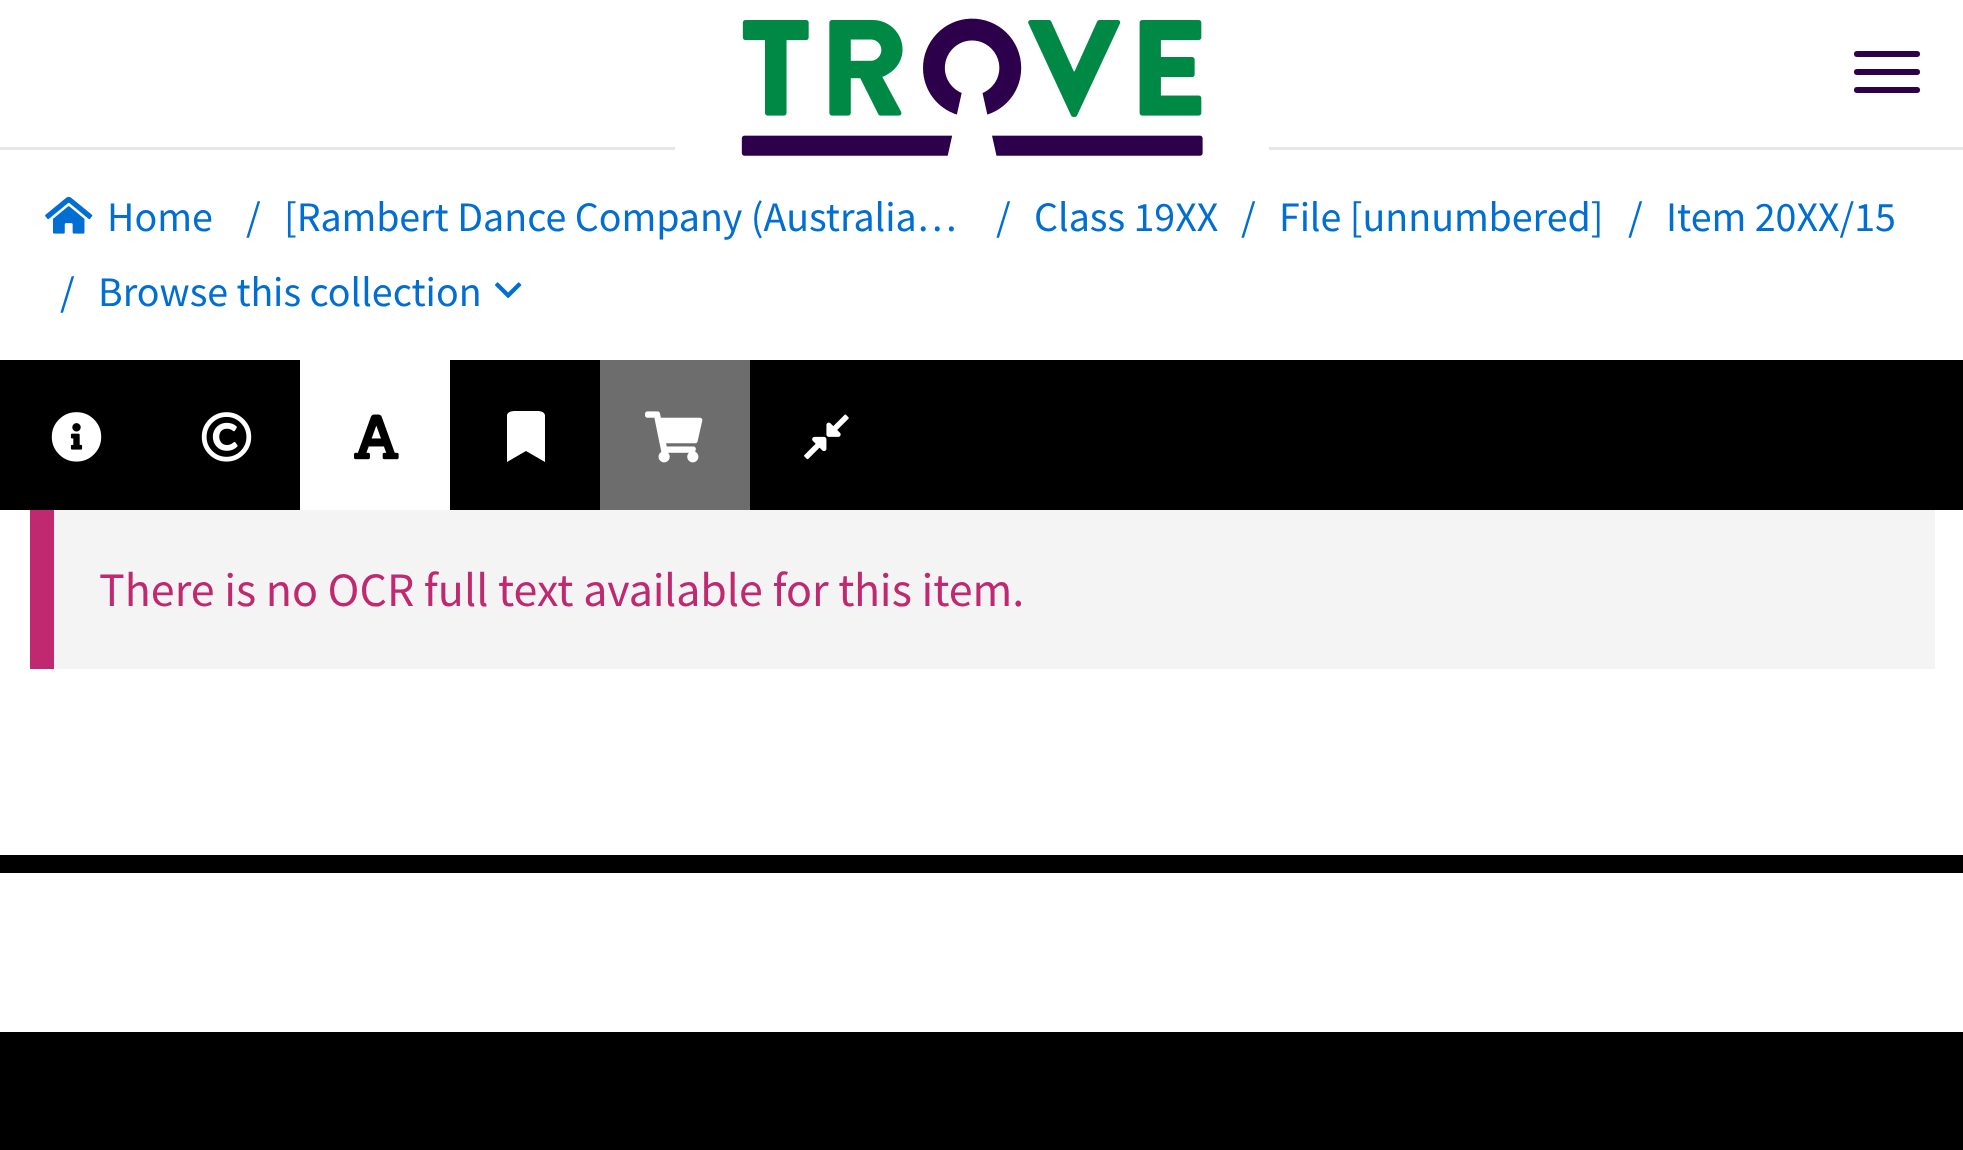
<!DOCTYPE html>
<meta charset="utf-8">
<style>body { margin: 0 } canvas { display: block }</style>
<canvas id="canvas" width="1963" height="1150"></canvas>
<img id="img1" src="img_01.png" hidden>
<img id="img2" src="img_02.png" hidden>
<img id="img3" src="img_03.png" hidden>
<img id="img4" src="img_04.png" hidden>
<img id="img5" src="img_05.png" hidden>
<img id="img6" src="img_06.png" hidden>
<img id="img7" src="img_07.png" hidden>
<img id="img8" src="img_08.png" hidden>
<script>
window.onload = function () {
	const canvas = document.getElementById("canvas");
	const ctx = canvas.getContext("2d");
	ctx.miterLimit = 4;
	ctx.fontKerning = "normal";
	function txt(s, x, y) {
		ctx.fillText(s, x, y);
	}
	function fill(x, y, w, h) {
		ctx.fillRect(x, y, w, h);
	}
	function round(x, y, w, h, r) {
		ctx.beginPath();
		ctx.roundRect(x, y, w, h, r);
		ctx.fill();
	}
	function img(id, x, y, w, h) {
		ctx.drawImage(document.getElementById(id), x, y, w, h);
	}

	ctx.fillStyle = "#FFFFFF";
	fill(0, 0, 1963, 1150);
	ctx.fillStyle = "#E7E7E7";
	fill(0, 147, 1963, 3);
	ctx.fillStyle = "#FFFFFF";
	fill(675, 147, 594, 3);
	img("img1", 741, 18, 462, 138);
	ctx.fillStyle = "#2D004B";
	round(1854, 51, 66, 6, 3);
	round(1854, 69, 66, 6, 3);
	round(1854, 87, 66, 6, 3);
	img("img2", 45, 196, 48, 38);
	img("img3", 495, 282, 27, 17);
	ctx.fillStyle = "#000000";
	fill(0, 360, 1963, 150);
	img("img4", 51, 412, 51, 50);
	img("img5", 201, 412, 51, 50);
	ctx.fillStyle = "#FFFFFF";
	fill(300, 360, 150, 150);
	img("img6", 354, 414, 45, 46);
	ctx.beginPath();
	ctx.moveTo(507, 462);
	ctx.lineTo(507, 415);
	ctx.bezierCurveTo(508, 411, 513, 411, 517, 411);
	ctx.lineTo(536, 411);
	ctx.bezierCurveTo(539, 411, 544, 411, 545, 415);
	ctx.lineTo(545, 462);
	ctx.lineTo(526, 451);
	ctx.closePath();
	ctx.fill();
	ctx.fillStyle = "#6D6D6D";
	fill(600, 360, 150, 150);
	img("img7", 645, 411, 58, 52);
	img("img8", 804, 414, 45, 46);
	ctx.fillStyle = "#F4F4F4";
	fill(54, 510, 1881, 159);
	ctx.fillStyle = "#C0286F";
	fill(30, 510, 24, 159);
	ctx.fillStyle = "#000000";
	fill(0, 855, 1963, 18);
	fill(0, 1032, 1963, 118);
	ctx.font = "42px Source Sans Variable";
	ctx.fillStyle = "#016ED3";
	txt("Home", 107, 231);
	txt("/", 246, 231);
	txt("[Rambert Dance Company (Australia…", 284, 231);
	txt("/", 996, 231);
	txt("Class 19XX", 1034, 231);
	txt("/", 1241, 231);
	txt("File [unnumbered]", 1279, 231);
	txt("/", 1628, 231);
	txt("Item 20XX/15", 1666, 231);
	txt("/", 60, 306);
	txt("Browse this collection", 98, 306);
	ctx.font = "48px Source Sans Variable";
	ctx.fillStyle = "#C0286F";
	txt("There is no OCR full text available for this item.", 99, 606);
};
</script>
